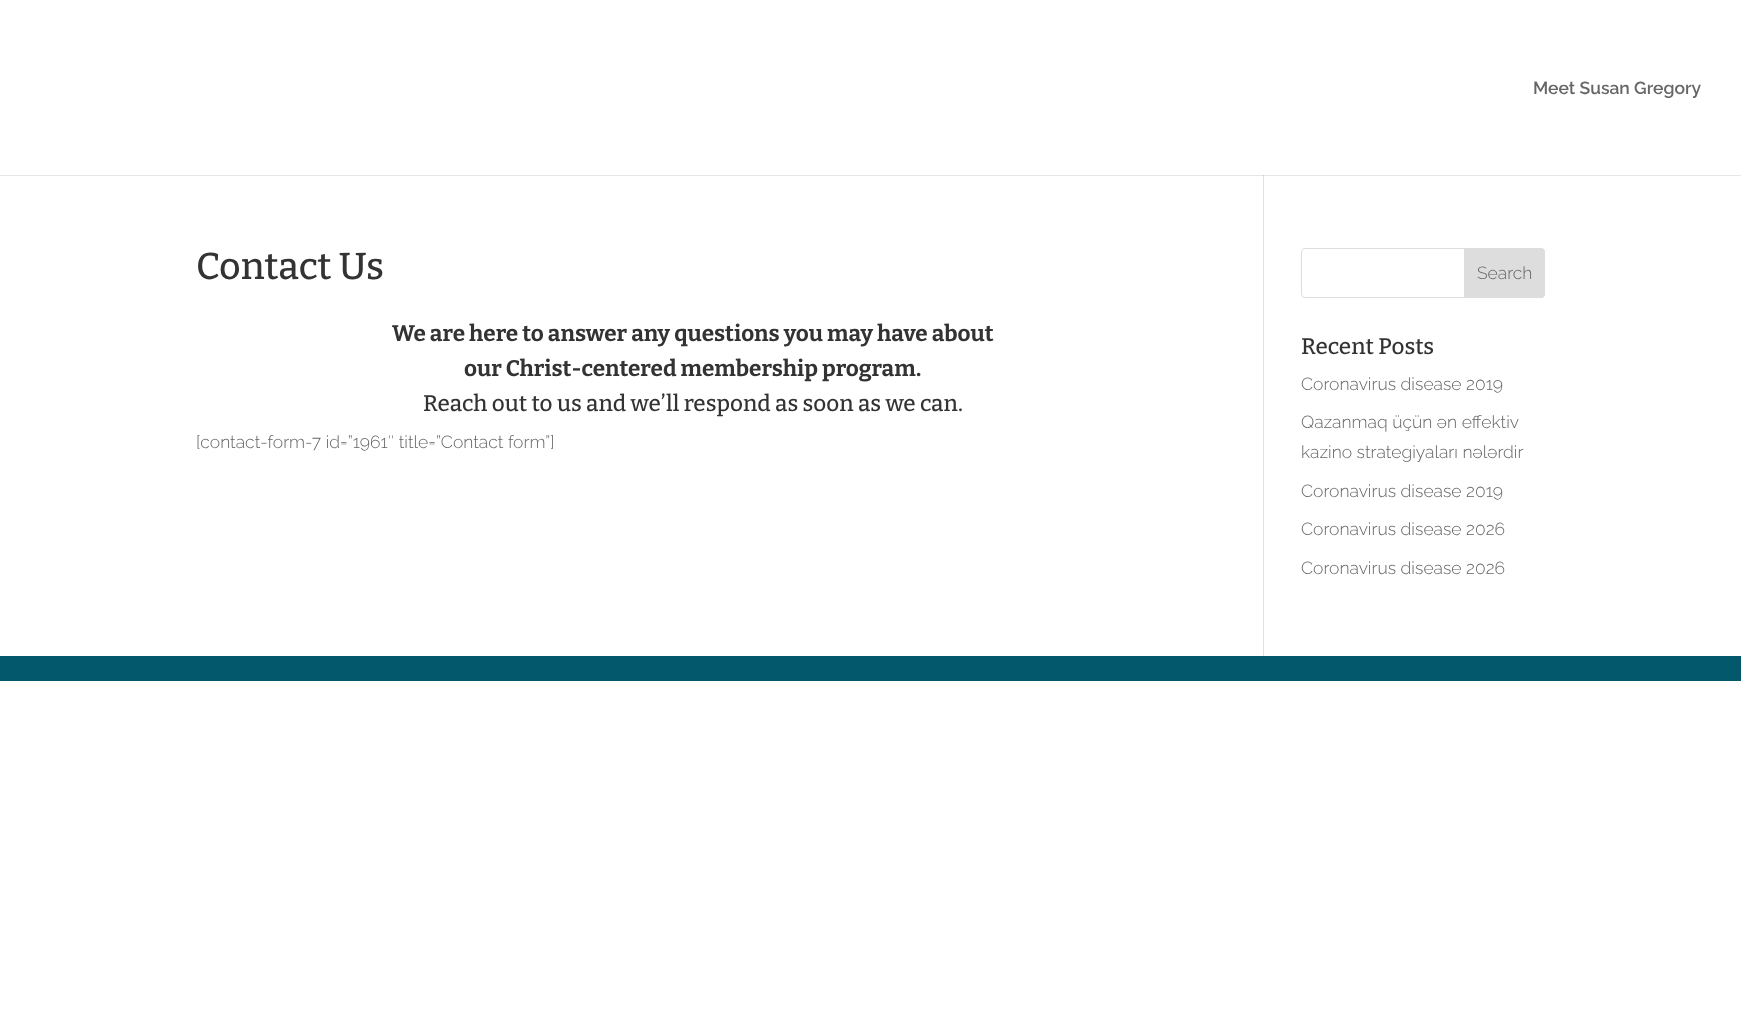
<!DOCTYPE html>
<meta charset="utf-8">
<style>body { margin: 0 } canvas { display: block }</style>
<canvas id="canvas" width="1741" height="1018"></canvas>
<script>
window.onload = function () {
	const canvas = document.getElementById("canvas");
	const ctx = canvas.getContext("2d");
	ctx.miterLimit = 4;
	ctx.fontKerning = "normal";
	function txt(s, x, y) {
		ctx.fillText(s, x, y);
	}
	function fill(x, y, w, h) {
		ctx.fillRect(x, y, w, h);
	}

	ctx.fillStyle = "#FFFFFF";
	fill(0, 0, 1741, 1018);
	ctx.fillStyle = "#E6E6E6";
	fill(0, 175, 1741, 1);
	ctx.fillStyle = "#E2E2E2";
	fill(1263, 175, 1, 481);
	ctx.fillStyle = "#CBCBCB";
	fill(1263, 175, 1, 1);
	ctx.beginPath();
	ctx.roundRect(1301.5, 248.5, 243, 49, 3.5);
	ctx.strokeStyle = "#DDDDDD";
	ctx.stroke();
	ctx.fillStyle = "#DDDDDD";
	ctx.beginPath();
	ctx.roundRect(1464.5, 248.5, 80, 49, [0, 3.5, 3.5, 0]);
	ctx.fill();
	ctx.stroke();
	ctx.fillStyle = "#03586C";
	fill(0, 656, 1741, 25);
	ctx.font = "600 17.5px Raleway";
	ctx.fillStyle = "#666666";
	txt("Meet Susan Gregory", 1533, 94);
	ctx.font = "500 37.5px Bitter";
	ctx.fillStyle = "#333333";
	txt("Contact Us", 196, 279);
	ctx.font = "bold 22.5px Bitter";
	txt("We are here to answer any questions you may have about", 392, 341);
	txt("our Christ-centered membership program.", 464, 376);
	ctx.font = "500 22.5px Bitter";
	txt("Reach out to us and we’ll respond as soon as we can.", 423, 411);
	ctx.font = "300 17.5px Raleway";
	ctx.fillStyle = "#666666";
	txt("[contact-form-7 id=”1961″ title=”Contact form”]", 196, 448);
	txt("Search", 1477, 279);
	ctx.font = "500 22.5px Bitter";
	ctx.fillStyle = "#333333";
	txt("Recent Posts", 1301, 354);
	ctx.font = "300 17.5px Raleway";
	ctx.fillStyle = "#666666";
	txt("Coronavirus disease 2019", 1301, 390);
	txt("Qazanmaq üçün ən effektiv", 1301, 428);
	txt("kazino strategiyaları nələrdir", 1301, 458);
	txt("Coronavirus disease 2019", 1301, 497);
	txt("Coronavirus disease 2026", 1301, 535);
	txt("Coronavirus disease 2026", 1301, 574);
};
</script>
